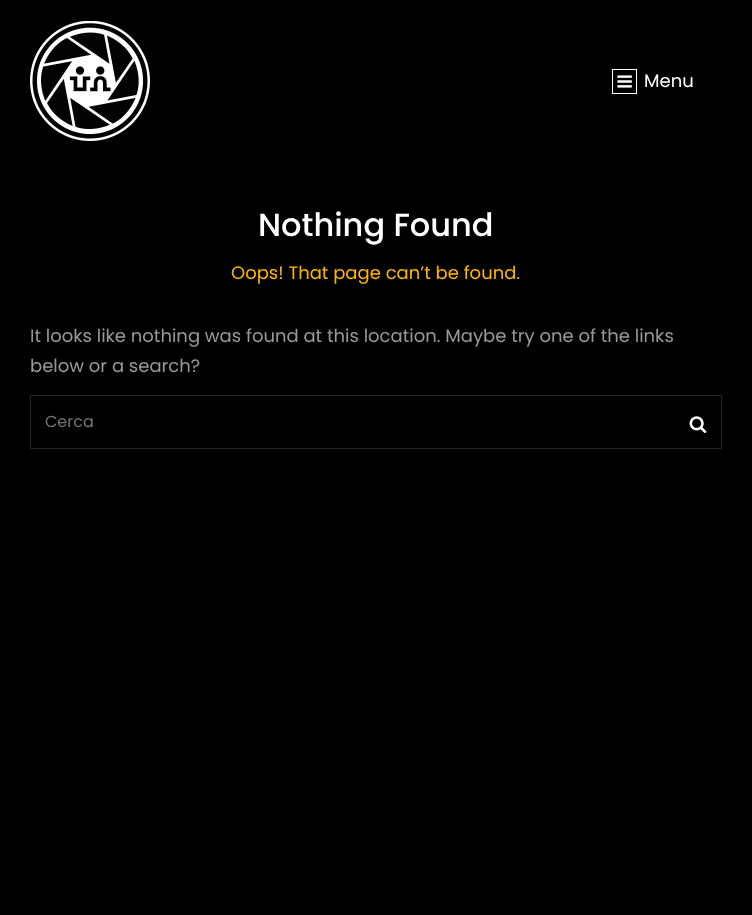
<!DOCTYPE html>
<meta charset="utf-8">
<style>body { margin: 0 } canvas { display: block }</style>
<canvas id="canvas" width="752" height="915"></canvas>
<img id="img1" src="img_01.png" hidden>
<img id="img2" src="img_02.png" hidden>
<img id="img3" src="img_03.png" hidden>
<script>
window.onload = function () {
	const canvas = document.getElementById("canvas");
	const ctx = canvas.getContext("2d");
	ctx.miterLimit = 4;
	ctx.fontKerning = "normal";
	function txt(s, x, y) {
		ctx.fillText(s, x, y);
	}
	function fill(x, y, w, h) {
		ctx.fillRect(x, y, w, h);
	}
	function img(id, x, y, w, h) {
		ctx.drawImage(document.getElementById(id), x, y, w, h);
	}

	ctx.fillStyle = "#000000";
	fill(0, 0, 752, 915);
	img("img1", 30, 21, 120, 120);
	ctx.strokeStyle = "#FFFFFF";
	ctx.strokeRect(612.5, 69.5, 24, 24);
	img("img2", 617, 75, 15, 13);
	ctx.strokeStyle = "#252525";
	ctx.strokeRect(30.5, 395.5, 691, 53);
	img("img3", 689, 416, 18, 17);
	ctx.font = "18px Poppins";
	ctx.fillStyle = "#FFFFFF";
	txt("Menu", 644, 87);
	ctx.font = "500 32px Poppins";
	txt("Nothing Found", 258, 236);
	ctx.font = "18px Poppins";
	ctx.fillStyle = "#FFB700";
	txt("Oops! That page can’t be found.", 231, 279);
	ctx.fillStyle = "#999999";
	txt("It looks like nothing was found at this location. Maybe try one of the links", 30, 342);
	txt("below or a search?", 30, 372);
	ctx.font = "16px Poppins";
	ctx.fillStyle = "#757575";
	txt("Cerca", 45, 427);
};
</script>
